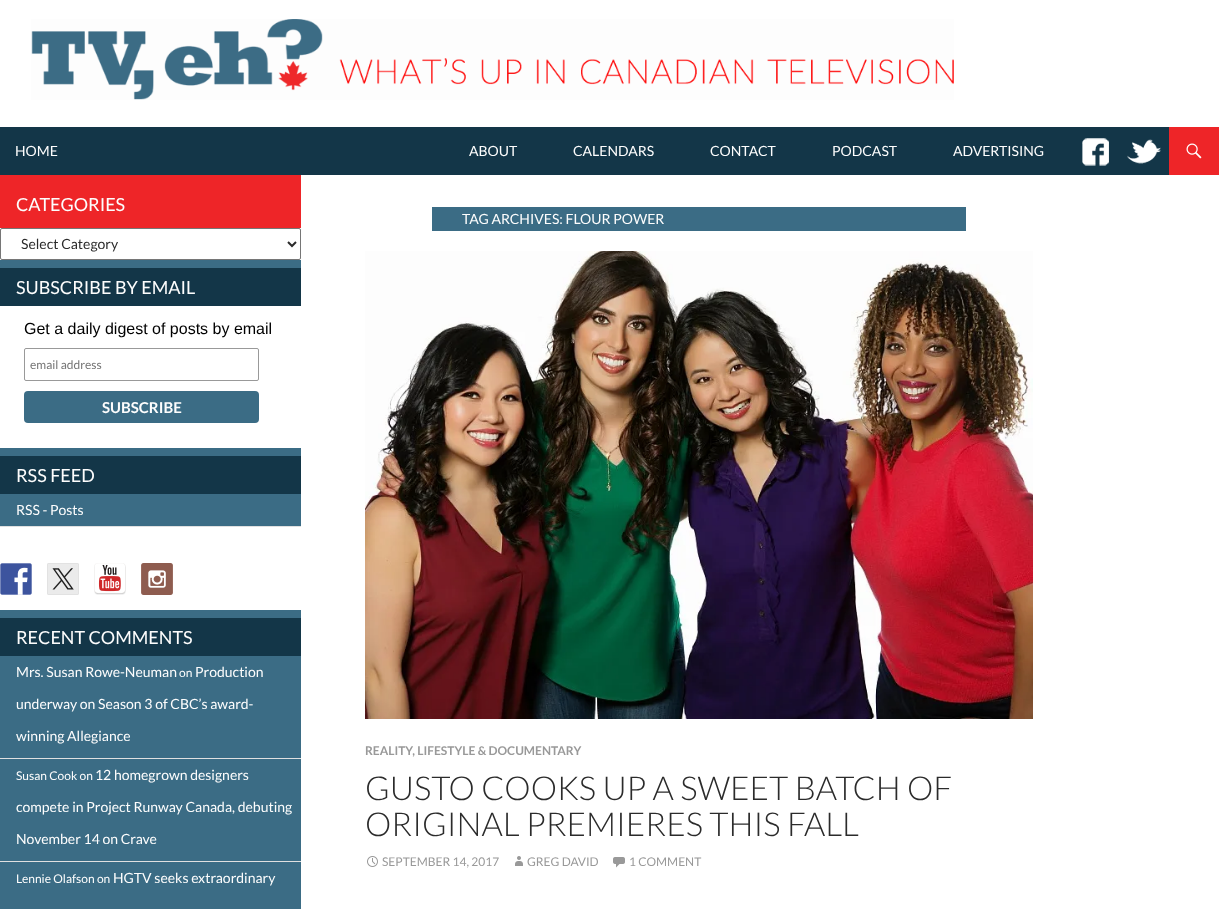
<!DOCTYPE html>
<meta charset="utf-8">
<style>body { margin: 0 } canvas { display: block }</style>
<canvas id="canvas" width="1219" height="909"></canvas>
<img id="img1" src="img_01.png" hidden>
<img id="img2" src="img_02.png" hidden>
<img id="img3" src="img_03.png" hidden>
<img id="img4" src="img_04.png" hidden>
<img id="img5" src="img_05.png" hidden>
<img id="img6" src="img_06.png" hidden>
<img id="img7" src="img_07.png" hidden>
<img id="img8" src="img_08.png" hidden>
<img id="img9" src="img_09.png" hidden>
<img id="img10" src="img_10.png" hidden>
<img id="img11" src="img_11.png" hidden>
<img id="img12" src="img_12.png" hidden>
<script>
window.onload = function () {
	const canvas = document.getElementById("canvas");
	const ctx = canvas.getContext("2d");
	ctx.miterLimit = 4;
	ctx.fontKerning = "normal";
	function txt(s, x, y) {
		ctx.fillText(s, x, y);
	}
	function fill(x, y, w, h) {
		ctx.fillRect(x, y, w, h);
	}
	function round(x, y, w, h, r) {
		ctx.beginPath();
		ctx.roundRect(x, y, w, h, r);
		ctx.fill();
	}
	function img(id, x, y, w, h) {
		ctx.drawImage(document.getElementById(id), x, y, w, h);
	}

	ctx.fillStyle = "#FFFFFF";
	fill(0, 0, 1219, 909);
	img("img1", 31, 19, 923, 81);
	ctx.fillStyle = "#133648";
	fill(0, 127, 1169, 48);
	img("img2", 1082, 138, 27, 28);
	img("img3", 1127, 139, 34, 25);
	ctx.fillStyle = "#EE2528";
	fill(1169, 127, 50, 48);
	img("img4", 1186, 143, 16, 16);
	fill(0, 175, 301, 53);
	ctx.beginPath();
	ctx.roundRect(0.5, 228.5, 300, 31, 1.5);
	ctx.strokeStyle = "#767676";
	ctx.stroke();
	ctx.beginPath();
	ctx.moveTo(288, 242);
	ctx.lineTo(292, 246);
	ctx.lineTo(296, 242);
	ctx.strokeStyle = "#2B2B2B";
	ctx.lineWidth = 2;
	ctx.stroke();
	ctx.fillStyle = "#133648";
	fill(0, 268, 301, 38);
	ctx.fillStyle = "#3B6C85";
	fill(0, 260, 301, 8);
	ctx.beginPath();
	ctx.roundRect(24.5, 348.5, 234, 32, 1.5);
	ctx.strokeStyle = "#999999";
	ctx.lineWidth = 1;
	ctx.stroke();
	round(24, 391, 235, 32, 4);
	ctx.fillStyle = "#133648";
	fill(0, 456, 301, 38);
	ctx.fillStyle = "#3B6C85";
	fill(0, 448, 301, 8);
	fill(0, 494, 301, 32);
	ctx.fillStyle = "#E0E0E0";
	fill(0, 526, 301, 1);
	img("img5", 0, 563, 32, 32);
	img("img6", 47, 563, 32, 32);
	img("img7", 94, 563, 32, 32);
	img("img8", 141, 563, 32, 32);
	ctx.fillStyle = "#133648";
	fill(0, 618, 301, 38);
	ctx.fillStyle = "#3B6C85";
	fill(0, 610, 301, 8);
	fill(0, 656, 301, 102);
	ctx.fillStyle = "#E0E0E0";
	fill(0, 758, 301, 1);
	ctx.fillStyle = "#3B6C85";
	fill(0, 759, 301, 102);
	ctx.fillStyle = "#E0E0E0";
	fill(0, 861, 301, 1);
	ctx.fillStyle = "#3B6C85";
	fill(0, 862, 301, 47);
	fill(432, 207, 534, 24);
	img("img9", 365, 251, 668, 468);
	img("img10", 367, 856, 11, 11);
	img("img11", 515, 856, 8, 10);
	img("img12", 613, 857, 12, 11);
	ctx.font = "14px Lato";
	ctx.fillStyle = "#FDFDFD";
	txt("HOME", 15, 156);
	txt("ABOUT", 469, 156);
	txt("CALENDARS", 573, 156);
	txt("CONTACT", 710, 156);
	txt("PODCAST", 832, 156);
	txt("ADVERTISING", 953, 156);
	ctx.font = "18px Lato";
	txt("CATEGORIES", 16, 211);
	ctx.font = "14px Lato";
	ctx.fillStyle = "#2B2B2B";
	txt("Select Category", 21, 249);
	ctx.font = "18px Lato";
	ctx.fillStyle = "#FDFDFD";
	txt("SUBSCRIBE BY EMAIL", 16, 294);
	ctx.font = "16px Liberation Sans";
	ctx.fillStyle = "#000000";
	txt("Get a daily digest of posts by email", 24, 334);
	ctx.font = "12px Lato";
	ctx.fillStyle = "#757575";
	txt("email address", 30, 369);
	ctx.font = "bold 15px Lato";
	ctx.fillStyle = "#FDFDFD";
	txt("SUBSCRIBE", 102, 413);
	ctx.font = "18px Lato";
	txt("RSS FEED", 16, 482);
	ctx.font = "14px Lato";
	txt("RSS - Posts", 16, 515);
	ctx.font = "18px Lato";
	txt("RECENT COMMENTS", 16, 644);
	ctx.font = "14px Lato";
	txt("Mrs. Susan Rowe-Neuman", 16, 677);
	ctx.font = "12px Lato";
	txt("on", 179, 677);
	ctx.font = "14px Lato";
	txt("Production", 195, 677);
	txt("underway on Season 3 of CBC’s award-", 16, 709);
	txt("winning Allegiance", 16, 741);
	ctx.font = "12px Lato";
	txt("Susan Cook on", 16, 780);
	ctx.font = "14px Lato";
	txt("12 homegrown designers", 95, 780);
	txt("compete in Project Runway Canada, debuting", 16, 812);
	txt("November 14 on Crave", 16, 844);
	ctx.font = "12px Lato";
	txt("Lennie Olafson on", 16, 883);
	ctx.font = "14px Lato";
	txt("HGTV seeks extraordinary", 113, 883);
	txt("TAG ARCHIVES: FLOUR POWER", 462, 224);
	ctx.font = "bold 12px Lato";
	ctx.fillStyle = "#999999";
	txt("REALITY, LIFESTYLE & DOCUMENTARY", 365, 755);
	ctx.font = "300 33px Lato";
	ctx.fillStyle = "#2B2B2B";
	txt("GUSTO COOKS UP A SWEET BATCH OF", 365, 800);
	txt("ORIGINAL PREMIERES THIS FALL", 365, 836);
	ctx.font = "12px Lato";
	ctx.fillStyle = "#999999";
	txt("SEPTEMBER 14, 2017", 382, 866);
	txt("GREG DAVID", 527, 866);
	txt("1 COMMENT", 629, 866);
};
</script>
